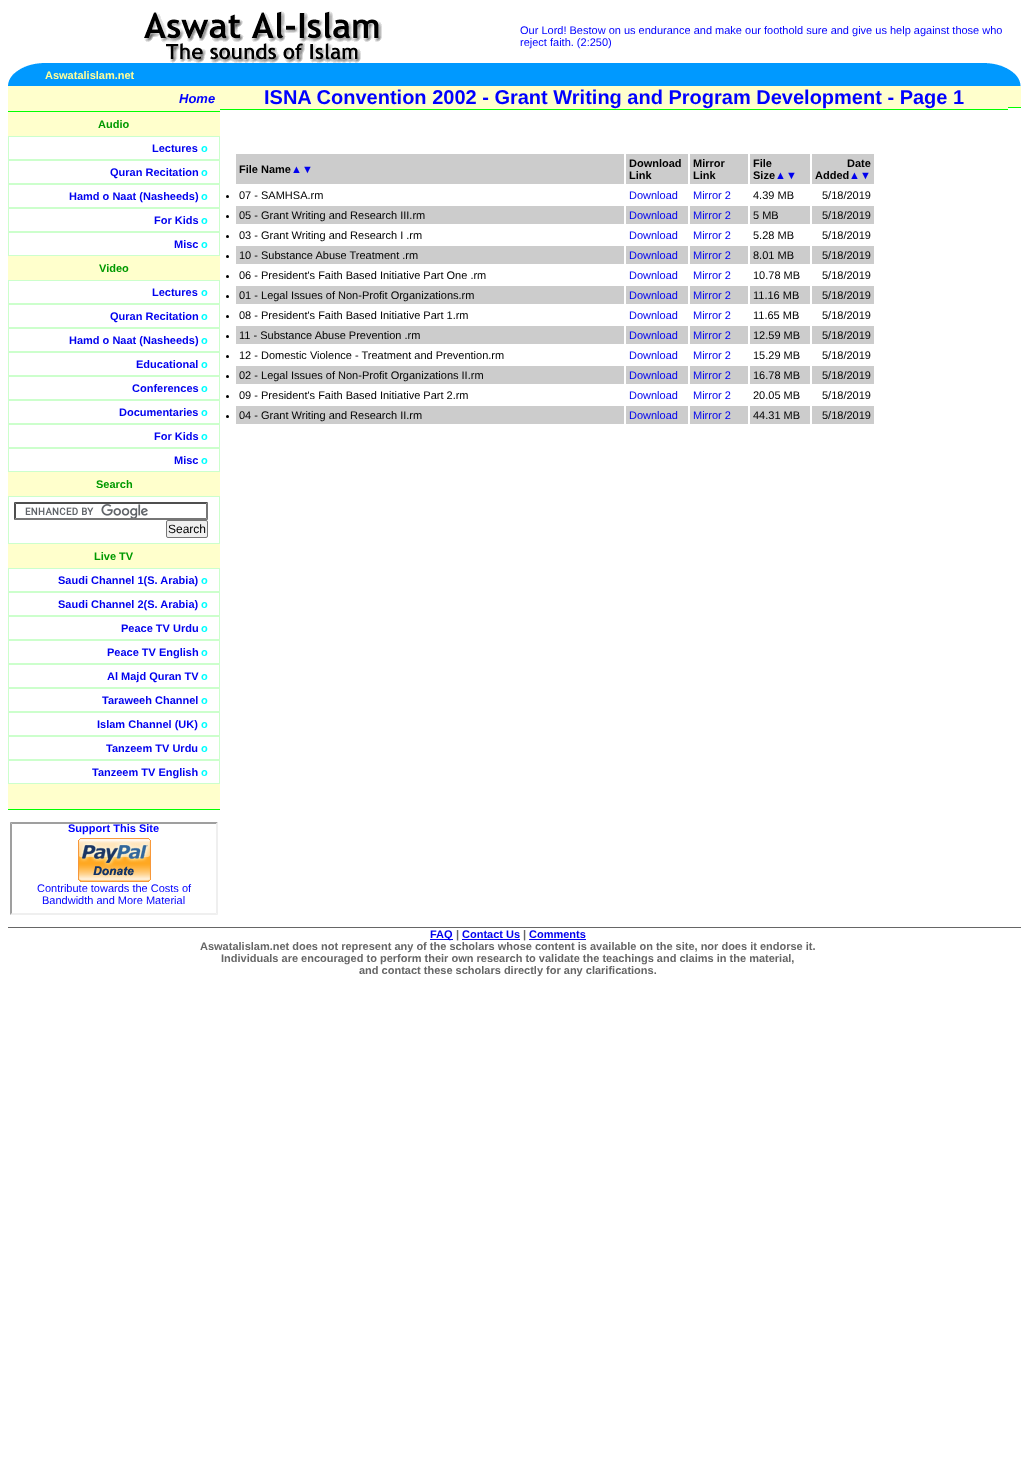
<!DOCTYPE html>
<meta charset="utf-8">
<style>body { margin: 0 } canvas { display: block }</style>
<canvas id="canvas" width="1029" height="1462"></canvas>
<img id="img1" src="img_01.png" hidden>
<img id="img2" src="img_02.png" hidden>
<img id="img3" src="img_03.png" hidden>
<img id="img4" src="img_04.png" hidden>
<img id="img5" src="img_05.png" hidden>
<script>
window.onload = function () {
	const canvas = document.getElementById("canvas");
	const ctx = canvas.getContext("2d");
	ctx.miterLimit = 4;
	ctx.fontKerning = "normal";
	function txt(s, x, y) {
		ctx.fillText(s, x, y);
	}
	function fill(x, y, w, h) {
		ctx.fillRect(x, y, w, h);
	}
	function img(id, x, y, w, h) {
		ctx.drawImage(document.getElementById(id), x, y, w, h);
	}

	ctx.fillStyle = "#FFFFFF";
	fill(0, 0, 1029, 1462);
	img("img1", 144, 11, 238, 52);
	img("img2", 8, 63, 37, 23);
	ctx.fillStyle = "#0099FF";
	fill(45, 63, 938, 23);
	img("img3", 983, 63, 38, 23);
	ctx.fillStyle = "#FFFFCC";
	fill(8, 86, 212, 25);
	ctx.fillStyle = "#00FF00";
	fill(8, 111, 212, 1);
	ctx.fillStyle = "#FFFFCC";
	fill(8, 112, 212, 24);
	ctx.strokeStyle = "#CCFFCC";
	ctx.strokeRect(8.5, 136.5, 211, 23);
	ctx.strokeRect(8.5, 160.5, 211, 23);
	ctx.strokeRect(8.5, 184.5, 211, 23);
	ctx.strokeRect(8.5, 208.5, 211, 23);
	ctx.strokeRect(8.5, 232.5, 211, 23);
	fill(8, 256, 212, 24);
	ctx.strokeRect(8.5, 280.5, 211, 23);
	ctx.strokeRect(8.5, 304.5, 211, 23);
	ctx.strokeRect(8.5, 328.5, 211, 23);
	ctx.strokeRect(8.5, 352.5, 211, 23);
	ctx.strokeRect(8.5, 376.5, 211, 23);
	ctx.strokeRect(8.5, 400.5, 211, 23);
	ctx.strokeRect(8.5, 424.5, 211, 23);
	ctx.strokeRect(8.5, 448.5, 211, 23);
	fill(8, 472, 212, 24);
	ctx.strokeRect(8.5, 496.5, 211, 47);
	img("img4", 25, 504, 123, 14);
	ctx.fillStyle = "#4F4F4F";
	ctx.beginPath();
	ctx.moveTo(14, 502);
	ctx.lineTo(208, 502);
	ctx.lineTo(206, 504);
	ctx.lineTo(16, 504);
	ctx.closePath();
	ctx.fill();
	ctx.fillStyle = "#767676";
	ctx.beginPath();
	ctx.moveTo(208, 502);
	ctx.lineTo(208, 520);
	ctx.lineTo(206, 518);
	ctx.lineTo(206, 504);
	ctx.closePath();
	ctx.fill();
	ctx.beginPath();
	ctx.moveTo(208, 520);
	ctx.lineTo(14, 520);
	ctx.lineTo(16, 518);
	ctx.lineTo(206, 518);
	ctx.closePath();
	ctx.fill();
	ctx.fillStyle = "#4F4F4F";
	ctx.beginPath();
	ctx.moveTo(14, 520);
	ctx.lineTo(14, 502);
	ctx.lineTo(16, 504);
	ctx.lineTo(16, 518);
	ctx.closePath();
	ctx.fill();
	ctx.fillStyle = "#EFEFEF";
	ctx.beginPath();
	ctx.roundRect(166.5, 520.5, 41, 17, 1.5);
	ctx.fill();
	ctx.strokeStyle = "#767676";
	ctx.stroke();
	ctx.fillStyle = "#FFFFCC";
	fill(8, 544, 212, 24);
	ctx.strokeStyle = "#CCFFCC";
	ctx.strokeRect(8.5, 568.5, 211, 23);
	ctx.strokeRect(8.5, 592.5, 211, 23);
	ctx.strokeRect(8.5, 616.5, 211, 23);
	ctx.strokeRect(8.5, 640.5, 211, 23);
	ctx.strokeRect(8.5, 664.5, 211, 23);
	ctx.strokeRect(8.5, 688.5, 211, 23);
	ctx.strokeRect(8.5, 712.5, 211, 23);
	ctx.strokeRect(8.5, 736.5, 211, 23);
	ctx.strokeRect(8.5, 760.5, 211, 23);
	fill(8, 784, 212, 25);
	ctx.fillStyle = "#00FF00";
	fill(8, 809, 212, 1);
	ctx.fillStyle = "#9F9F9F";
	ctx.beginPath();
	ctx.moveTo(10, 822);
	ctx.lineTo(218, 822);
	ctx.lineTo(216, 824);
	ctx.lineTo(12, 824);
	ctx.closePath();
	ctx.fill();
	ctx.fillStyle = "#EFEFEF";
	ctx.beginPath();
	ctx.moveTo(218, 822);
	ctx.lineTo(218, 915);
	ctx.lineTo(216, 913);
	ctx.lineTo(216, 824);
	ctx.closePath();
	ctx.fill();
	ctx.beginPath();
	ctx.moveTo(218, 915);
	ctx.lineTo(10, 915);
	ctx.lineTo(12, 913);
	ctx.lineTo(216, 913);
	ctx.closePath();
	ctx.fill();
	ctx.fillStyle = "#9F9F9F";
	ctx.beginPath();
	ctx.moveTo(10, 915);
	ctx.lineTo(10, 822);
	ctx.lineTo(12, 824);
	ctx.lineTo(12, 913);
	ctx.closePath();
	ctx.fill();
	img("img5", 78, 838, 73, 44);
	ctx.fillStyle = "#FFFFCC";
	fill(220, 86, 788, 23);
	ctx.fillStyle = "#00FF00";
	fill(220, 109, 788, 1);
	ctx.fillStyle = "#CCCCCC";
	fill(236, 154, 638, 30);
	ctx.strokeStyle = "#FFFFFF";
	ctx.strokeRect(235.5, 153.5, 389, 31);
	ctx.strokeRect(625.5, 153.5, 63, 31);
	ctx.strokeRect(689.5, 153.5, 59, 31);
	ctx.strokeRect(749.5, 153.5, 61, 31);
	ctx.strokeRect(811.5, 153.5, 63, 31);
	ctx.fillStyle = "#000000";
	ctx.beginPath();
	ctx.arc(227.5, 196.5, 1.5, 0, Math.PI * 2);
	ctx.fill();
	ctx.fillStyle = "#CCCCCC";
	fill(236, 206, 638, 18);
	ctx.strokeRect(235.5, 205.5, 389, 19);
	ctx.fillStyle = "#000000";
	ctx.beginPath();
	ctx.arc(227.5, 216.5, 1.5, 0, Math.PI * 2);
	ctx.fill();
	ctx.strokeRect(625.5, 205.5, 63, 19);
	ctx.strokeRect(689.5, 205.5, 59, 19);
	ctx.strokeRect(749.5, 205.5, 61, 19);
	ctx.strokeRect(811.5, 205.5, 63, 19);
	ctx.beginPath();
	ctx.arc(227.5, 236.5, 1.5, 0, Math.PI * 2);
	ctx.fill();
	ctx.fillStyle = "#CCCCCC";
	fill(236, 246, 638, 18);
	ctx.strokeRect(235.5, 245.5, 389, 19);
	ctx.fillStyle = "#000000";
	ctx.beginPath();
	ctx.arc(227.5, 256.5, 1.5, 0, Math.PI * 2);
	ctx.fill();
	ctx.strokeRect(625.5, 245.5, 63, 19);
	ctx.strokeRect(689.5, 245.5, 59, 19);
	ctx.strokeRect(749.5, 245.5, 61, 19);
	ctx.strokeRect(811.5, 245.5, 63, 19);
	ctx.beginPath();
	ctx.arc(227.5, 276.5, 1.5, 0, Math.PI * 2);
	ctx.fill();
	ctx.fillStyle = "#CCCCCC";
	fill(236, 286, 638, 18);
	ctx.strokeRect(235.5, 285.5, 389, 19);
	ctx.fillStyle = "#000000";
	ctx.beginPath();
	ctx.arc(227.5, 296.5, 1.5, 0, Math.PI * 2);
	ctx.fill();
	ctx.strokeRect(625.5, 285.5, 63, 19);
	ctx.strokeRect(689.5, 285.5, 59, 19);
	ctx.strokeRect(749.5, 285.5, 61, 19);
	ctx.strokeRect(811.5, 285.5, 63, 19);
	ctx.beginPath();
	ctx.arc(227.5, 316.5, 1.5, 0, Math.PI * 2);
	ctx.fill();
	ctx.fillStyle = "#CCCCCC";
	fill(236, 326, 638, 18);
	ctx.strokeRect(235.5, 325.5, 389, 19);
	ctx.fillStyle = "#000000";
	ctx.beginPath();
	ctx.arc(227.5, 336.5, 1.5, 0, Math.PI * 2);
	ctx.fill();
	ctx.strokeRect(625.5, 325.5, 63, 19);
	ctx.strokeRect(689.5, 325.5, 59, 19);
	ctx.strokeRect(749.5, 325.5, 61, 19);
	ctx.strokeRect(811.5, 325.5, 63, 19);
	ctx.beginPath();
	ctx.arc(227.5, 356.5, 1.5, 0, Math.PI * 2);
	ctx.fill();
	ctx.fillStyle = "#CCCCCC";
	fill(236, 366, 638, 18);
	ctx.strokeRect(235.5, 365.5, 389, 19);
	ctx.fillStyle = "#000000";
	ctx.beginPath();
	ctx.arc(227.5, 376.5, 1.5, 0, Math.PI * 2);
	ctx.fill();
	ctx.strokeRect(625.5, 365.5, 63, 19);
	ctx.strokeRect(689.5, 365.5, 59, 19);
	ctx.strokeRect(749.5, 365.5, 61, 19);
	ctx.strokeRect(811.5, 365.5, 63, 19);
	ctx.beginPath();
	ctx.arc(227.5, 396.5, 1.5, 0, Math.PI * 2);
	ctx.fill();
	ctx.fillStyle = "#CCCCCC";
	fill(236, 406, 638, 18);
	ctx.strokeRect(235.5, 405.5, 389, 19);
	ctx.fillStyle = "#000000";
	ctx.beginPath();
	ctx.arc(227.5, 416.5, 1.5, 0, Math.PI * 2);
	ctx.fill();
	ctx.strokeRect(625.5, 405.5, 63, 19);
	ctx.strokeRect(689.5, 405.5, 59, 19);
	ctx.strokeRect(749.5, 405.5, 61, 19);
	ctx.strokeRect(811.5, 405.5, 63, 19);
	ctx.fillStyle = "#FFFFCC";
	fill(1008, 86, 13, 21);
	ctx.fillStyle = "#00FF00";
	fill(1008, 107, 13, 1);
	ctx.fillStyle = "#666666";
	fill(8, 927, 1013, 1);
	ctx.fillStyle = "#0000EE";
	fill(430, 939, 23, 1);
	fill(462, 939, 58, 1);
	fill(529, 939, 57, 1);
	ctx.font = "11px Liberation Sans";
	ctx.fillStyle = "#0000FF";
	txt("Our Lord! Bestow on us endurance and make our foothold sure and give us help against those who", 520, 34);
	txt("reject faith. (2:250)", 520, 46);
	ctx.font = "bold 11px Liberation Sans";
	ctx.fillStyle = "#FFFF99";
	txt("Aswatalislam.net", 45, 79);
	ctx.font = "italic bold 13px Liberation Sans";
	ctx.fillStyle = "#0000FF";
	txt("Home", 179, 103);
	ctx.font = "bold 11px Liberation Sans";
	ctx.fillStyle = "#009900";
	txt("Audio", 98, 128);
	ctx.fillStyle = "#0000EE";
	txt("Lectures", 152, 152);
	ctx.fillStyle = "#00FFFF";
	txt("o", 201, 152);
	ctx.fillStyle = "#0000EE";
	txt("Quran Recitation", 110, 176);
	ctx.fillStyle = "#00FFFF";
	txt("o", 201, 176);
	ctx.fillStyle = "#0000EE";
	txt("Hamd o Naat (Nasheeds)", 69, 200);
	ctx.fillStyle = "#00FFFF";
	txt("o", 201, 200);
	ctx.fillStyle = "#0000EE";
	txt("For Kids", 154, 224);
	ctx.fillStyle = "#00FFFF";
	txt("o", 201, 224);
	ctx.fillStyle = "#0000EE";
	txt("Misc", 174, 248);
	ctx.fillStyle = "#00FFFF";
	txt("o", 201, 248);
	ctx.fillStyle = "#009900";
	txt("Video", 99, 272);
	ctx.fillStyle = "#0000EE";
	txt("Lectures", 152, 296);
	ctx.fillStyle = "#00FFFF";
	txt("o", 201, 296);
	ctx.fillStyle = "#0000EE";
	txt("Quran Recitation", 110, 320);
	ctx.fillStyle = "#00FFFF";
	txt("o", 201, 320);
	ctx.fillStyle = "#0000EE";
	txt("Hamd o Naat (Nasheeds)", 69, 344);
	ctx.fillStyle = "#00FFFF";
	txt("o", 201, 344);
	ctx.fillStyle = "#0000EE";
	txt("Educational", 136, 368);
	ctx.fillStyle = "#00FFFF";
	txt("o", 201, 368);
	ctx.fillStyle = "#0000EE";
	txt("Conferences", 132, 392);
	ctx.fillStyle = "#00FFFF";
	txt("o", 201, 392);
	ctx.fillStyle = "#0000EE";
	txt("Documentaries", 119, 416);
	ctx.fillStyle = "#00FFFF";
	txt("o", 201, 416);
	ctx.fillStyle = "#0000EE";
	txt("For Kids", 154, 440);
	ctx.fillStyle = "#00FFFF";
	txt("o", 201, 440);
	ctx.fillStyle = "#0000EE";
	txt("Misc", 174, 464);
	ctx.fillStyle = "#00FFFF";
	txt("o", 201, 464);
	ctx.fillStyle = "#009900";
	txt("Search", 96, 488);
	ctx.font = "12px Liberation Sans";
	ctx.fillStyle = "#000000";
	txt("Search", 168, 533);
	ctx.font = "bold 11px Liberation Sans";
	ctx.fillStyle = "#009900";
	txt("Live TV", 94, 560);
	ctx.fillStyle = "#0000EE";
	txt("Saudi Channel 1(S. Arabia)", 58, 584);
	ctx.fillStyle = "#00FFFF";
	txt("o", 201, 584);
	ctx.fillStyle = "#0000EE";
	txt("Saudi Channel 2(S. Arabia)", 58, 608);
	ctx.fillStyle = "#00FFFF";
	txt("o", 201, 608);
	ctx.fillStyle = "#0000EE";
	txt("Peace TV Urdu", 121, 632);
	ctx.fillStyle = "#00FFFF";
	txt("o", 201, 632);
	ctx.fillStyle = "#0000EE";
	txt("Peace TV English", 107, 656);
	ctx.fillStyle = "#00FFFF";
	txt("o", 201, 656);
	ctx.fillStyle = "#0000EE";
	txt("Al Majd Quran TV", 107, 680);
	ctx.fillStyle = "#00FFFF";
	txt("o", 201, 680);
	ctx.fillStyle = "#0000EE";
	txt("Taraweeh Channel", 102, 704);
	ctx.fillStyle = "#00FFFF";
	txt("o", 201, 704);
	ctx.fillStyle = "#0000EE";
	txt("Islam Channel (UK)", 97, 728);
	ctx.fillStyle = "#00FFFF";
	txt("o", 201, 728);
	ctx.fillStyle = "#0000EE";
	txt("Tanzeem TV Urdu", 106, 752);
	ctx.fillStyle = "#00FFFF";
	txt("o", 201, 752);
	ctx.fillStyle = "#0000EE";
	txt("Tanzeem TV English", 92, 776);
	ctx.fillStyle = "#00FFFF";
	txt("o", 201, 776);
	ctx.fillStyle = "#0000FF";
	txt("Support This Site", 68, 832);
	ctx.font = "11px Liberation Sans";
	txt("Contribute towards the Costs of", 37, 892);
	txt("Bandwidth and More Material", 42, 904);
	ctx.font = "bold 20px Liberation Sans";
	txt("ISNA Convention 2002 - Grant Writing and Program Development - Page 1", 264, 104);
	ctx.font = "bold 11px Liberation Sans";
	ctx.fillStyle = "#000000";
	txt("File Name", 239, 173);
	ctx.font = "11px Liberation Sans";
	ctx.fillStyle = "#0000EE";
	txt("▲▼", 291, 173);
	ctx.font = "bold 11px Liberation Sans";
	ctx.fillStyle = "#000000";
	txt("Download", 629, 167);
	txt("Link", 629, 179);
	txt("Mirror", 693, 167);
	txt("Link", 693, 179);
	txt("File", 753, 167);
	txt("Size", 753, 179);
	ctx.font = "11px Liberation Sans";
	ctx.fillStyle = "#0000EE";
	txt("▲▼", 775, 179);
	ctx.font = "bold 11px Liberation Sans";
	ctx.fillStyle = "#000000";
	txt("Date", 847, 167);
	txt("Added", 815, 179);
	ctx.font = "11px Liberation Sans";
	ctx.fillStyle = "#0000EE";
	txt("▲▼", 849, 179);
	ctx.fillStyle = "#000000";
	txt("07 - SAMHSA.rm", 239, 199);
	ctx.fillStyle = "#0000EE";
	txt("Download", 629, 199);
	txt("Mirror 2", 693, 199);
	ctx.fillStyle = "#000000";
	txt("4.39 MB", 753, 199);
	txt("5/18/2019", 822, 199);
	txt("05 - Grant Writing and Research III.rm", 239, 219);
	ctx.fillStyle = "#0000EE";
	txt("Download", 629, 219);
	txt("Mirror 2", 693, 219);
	ctx.fillStyle = "#000000";
	txt("5 MB", 753, 219);
	txt("5/18/2019", 822, 219);
	txt("03 - Grant Writing and Research I .rm", 239, 239);
	ctx.fillStyle = "#0000EE";
	txt("Download", 629, 239);
	txt("Mirror 2", 693, 239);
	ctx.fillStyle = "#000000";
	txt("5.28 MB", 753, 239);
	txt("5/18/2019", 822, 239);
	txt("10 - Substance Abuse Treatment .rm", 239, 259);
	ctx.fillStyle = "#0000EE";
	txt("Download", 629, 259);
	txt("Mirror 2", 693, 259);
	ctx.fillStyle = "#000000";
	txt("8.01 MB", 753, 259);
	txt("5/18/2019", 822, 259);
	txt("06 - President's Faith Based Initiative Part One .rm", 239, 279);
	ctx.fillStyle = "#0000EE";
	txt("Download", 629, 279);
	txt("Mirror 2", 693, 279);
	ctx.fillStyle = "#000000";
	txt("10.78 MB", 753, 279);
	txt("5/18/2019", 822, 279);
	txt("01 - Legal Issues of Non-Profit Organizations.rm", 239, 299);
	ctx.fillStyle = "#0000EE";
	txt("Download", 629, 299);
	txt("Mirror 2", 693, 299);
	ctx.fillStyle = "#000000";
	txt("11.16 MB", 753, 299);
	txt("5/18/2019", 822, 299);
	txt("08 - President's Faith Based Initiative Part 1.rm", 239, 319);
	ctx.fillStyle = "#0000EE";
	txt("Download", 629, 319);
	txt("Mirror 2", 693, 319);
	ctx.fillStyle = "#000000";
	txt("11.65 MB", 753, 319);
	txt("5/18/2019", 822, 319);
	txt("11 - Substance Abuse Prevention .rm", 239, 339);
	ctx.fillStyle = "#0000EE";
	txt("Download", 629, 339);
	txt("Mirror 2", 693, 339);
	ctx.fillStyle = "#000000";
	txt("12.59 MB", 753, 339);
	txt("5/18/2019", 822, 339);
	txt("12 - Domestic Violence - Treatment and Prevention.rm", 239, 359);
	ctx.fillStyle = "#0000EE";
	txt("Download", 629, 359);
	txt("Mirror 2", 693, 359);
	ctx.fillStyle = "#000000";
	txt("15.29 MB", 753, 359);
	txt("5/18/2019", 822, 359);
	txt("02 - Legal Issues of Non-Profit Organizations II.rm", 239, 379);
	ctx.fillStyle = "#0000EE";
	txt("Download", 629, 379);
	txt("Mirror 2", 693, 379);
	ctx.fillStyle = "#000000";
	txt("16.78 MB", 753, 379);
	txt("5/18/2019", 822, 379);
	txt("09 - President's Faith Based Initiative Part 2.rm", 239, 399);
	ctx.fillStyle = "#0000EE";
	txt("Download", 629, 399);
	txt("Mirror 2", 693, 399);
	ctx.fillStyle = "#000000";
	txt("20.05 MB", 753, 399);
	txt("5/18/2019", 822, 399);
	txt("04 - Grant Writing and Research II.rm", 239, 419);
	ctx.fillStyle = "#0000EE";
	txt("Download", 629, 419);
	txt("Mirror 2", 693, 419);
	ctx.fillStyle = "#000000";
	txt("44.31 MB", 753, 419);
	txt("5/18/2019", 822, 419);
	ctx.font = "bold 11px Liberation Sans";
	ctx.fillStyle = "#0000EE";
	txt("FAQ", 430, 938);
	ctx.fillStyle = "#666666";
	txt("|", 456, 938);
	ctx.fillStyle = "#0000EE";
	txt("Contact Us", 462, 938);
	ctx.fillStyle = "#666666";
	txt("|", 523, 938);
	ctx.fillStyle = "#0000EE";
	txt("Comments", 529, 938);
	ctx.fillStyle = "#666666";
	txt("Aswatalislam.net does not represent any of the scholars whose content is available on the site, nor does it endorse it.", 200, 950);
	txt("Individuals are encouraged to perform their own research to validate the teachings and claims in the material,", 221, 962);
	txt("and contact these scholars directly for any clarifications.", 359, 974);
};
</script>
